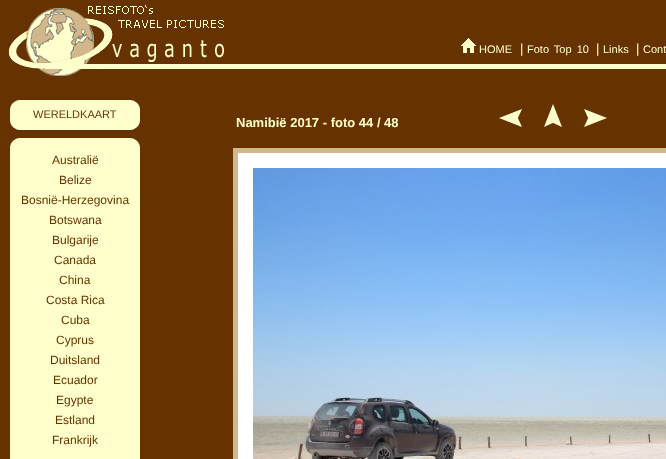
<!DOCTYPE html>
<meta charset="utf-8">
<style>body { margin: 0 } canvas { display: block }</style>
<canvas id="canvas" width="666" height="459"></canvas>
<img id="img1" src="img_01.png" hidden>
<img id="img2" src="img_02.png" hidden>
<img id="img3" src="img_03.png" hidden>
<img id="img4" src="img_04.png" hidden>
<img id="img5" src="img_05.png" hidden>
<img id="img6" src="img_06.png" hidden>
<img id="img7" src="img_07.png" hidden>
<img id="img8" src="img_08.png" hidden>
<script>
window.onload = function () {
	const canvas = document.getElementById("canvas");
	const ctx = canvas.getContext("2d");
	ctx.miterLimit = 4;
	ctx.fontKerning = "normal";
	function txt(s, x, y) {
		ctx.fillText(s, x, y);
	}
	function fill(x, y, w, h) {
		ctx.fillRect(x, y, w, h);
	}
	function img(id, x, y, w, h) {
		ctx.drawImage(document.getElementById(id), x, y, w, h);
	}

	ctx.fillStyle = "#663300";
	fill(0, 0, 666, 459);
	img("img1", 8, 5, 658, 71);
	img("img2", 461, 38, 15, 15);
	img("img3", 10, 100, 130, 30);
	img("img4", 10, 138, 130, 12);
	ctx.fillStyle = "#FFFFCC";
	fill(10, 150, 130, 309);
	img("img5", 499, 109, 23, 18);
	img("img6", 544, 104, 18, 23);
	img("img7", 584, 109, 23, 18);
	ctx.fillStyle = "#FFFFFF";
	ctx.beginPath();
	ctx.rect(235.5, 150.5, 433, 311);
	ctx.fill();
	ctx.strokeStyle = "#D2B78C";
	ctx.lineWidth = 5;
	ctx.stroke();
	img("img8", 253, 168, 413, 291);
	ctx.font = "11px Liberation Sans";
	ctx.fillStyle = "#FFFFCC";
	txt("HOME", 479, 53);
	ctx.font = "13px Liberation Sans";
	txt("|", 520, 53);
	ctx.wordSpacing = "2px";
	ctx.font = "11px Liberation Sans";
	txt("Foto Top 10", 527, 53);
	ctx.wordSpacing = "0px";
	ctx.font = "13px Liberation Sans";
	txt("|", 596, 53);
	ctx.font = "11px Liberation Sans";
	txt("Links", 603, 53);
	ctx.font = "13px Liberation Sans";
	txt("|", 636, 53);
	ctx.font = "11px Liberation Sans";
	txt("Cont", 643, 53);
	ctx.fillStyle = "#663300";
	txt("WERELDKAART", 33, 118);
	ctx.font = "12px Liberation Sans";
	txt("Australië", 52, 164);
	txt("Belize", 59, 184);
	txt("Bosnië-Herzegovina", 21, 204);
	txt("Botswana", 49, 224);
	txt("Bulgarije", 52, 244);
	txt("Canada", 54, 264);
	txt("China", 59, 284);
	txt("Costa Rica", 46, 304);
	txt("Cuba", 61, 324);
	txt("Cyprus", 56, 344);
	txt("Duitsland", 50, 364);
	txt("Ecuador", 53, 384);
	txt("Egypte", 56, 404);
	txt("Estland", 55, 424);
	txt("Frankrijk", 52, 444);
	ctx.font = "bold 13px Liberation Sans";
	ctx.fillStyle = "#FFFFCC";
	txt("Namibië 2017 - foto 44 / 48", 236, 127);
};
</script>
